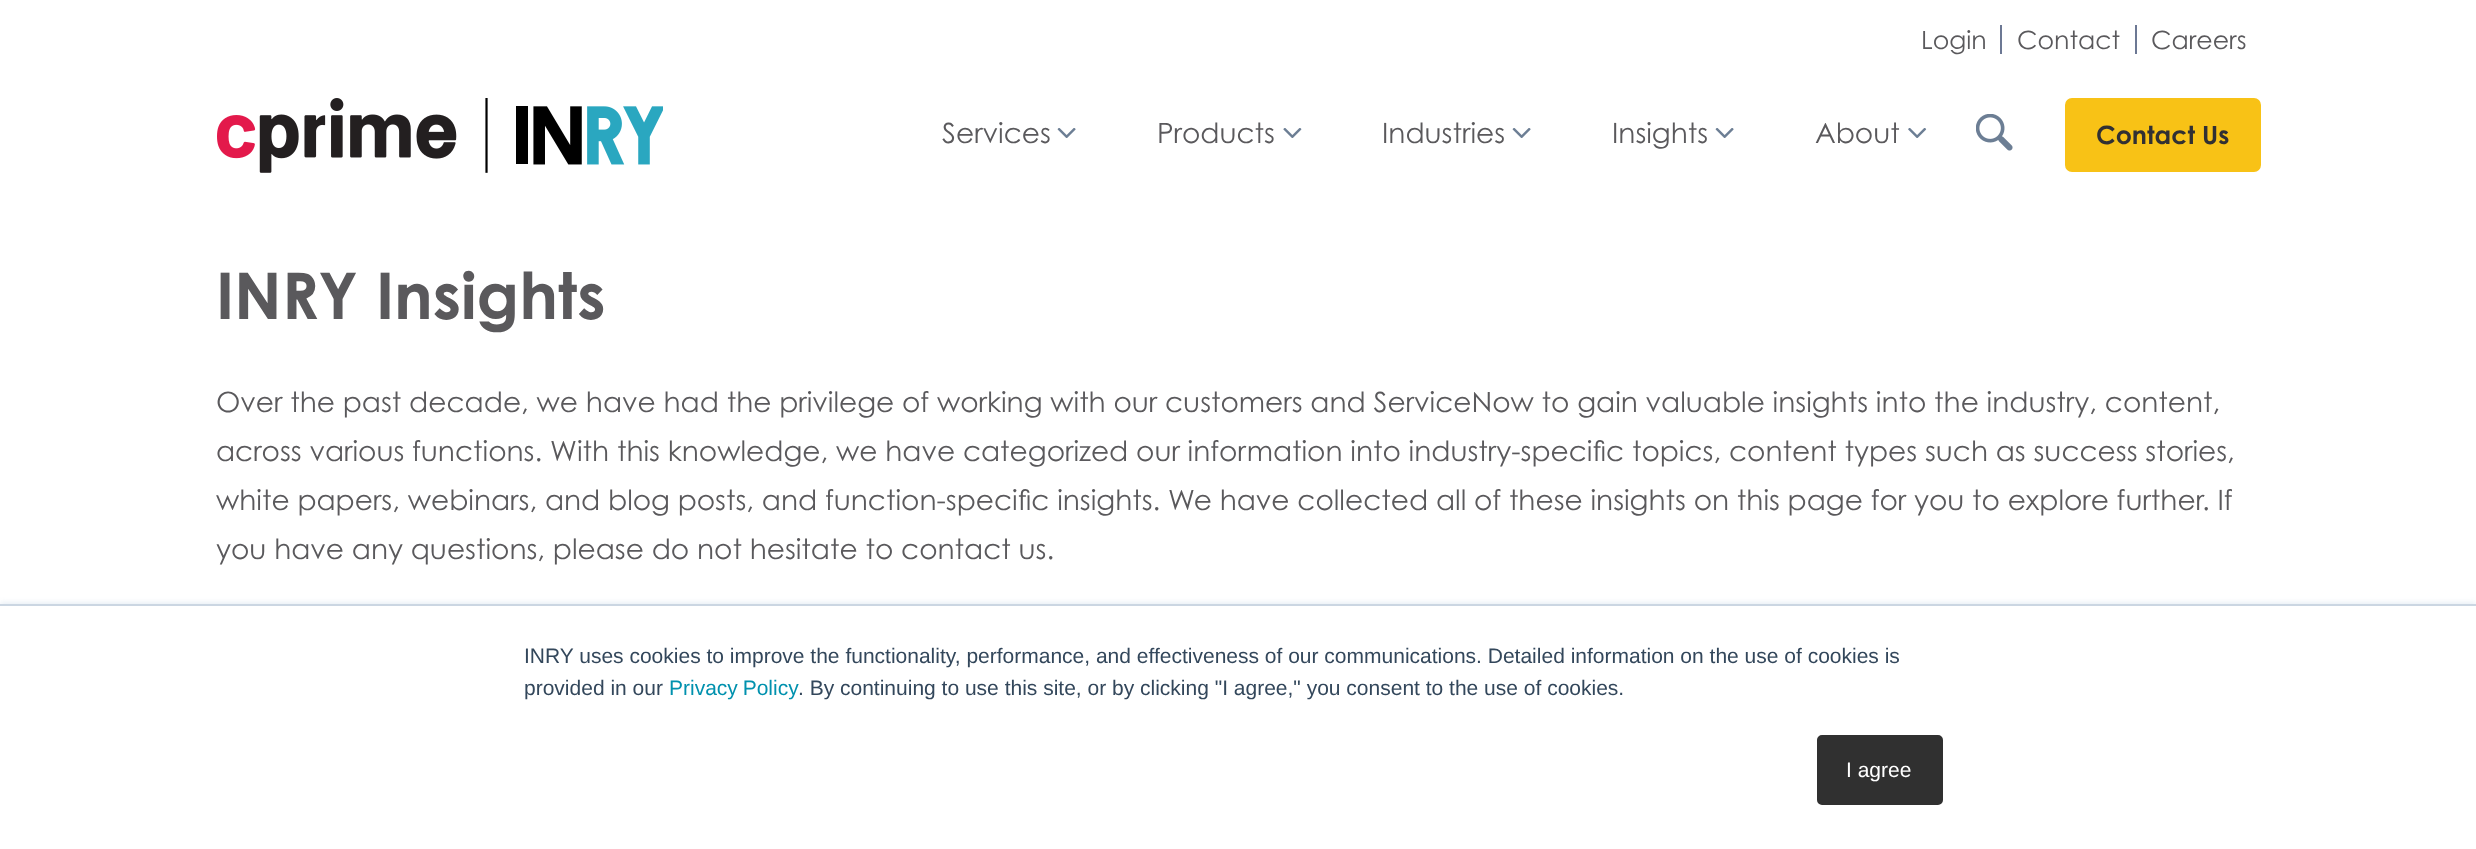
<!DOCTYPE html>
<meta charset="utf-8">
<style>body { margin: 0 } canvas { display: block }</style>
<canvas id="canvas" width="2476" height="849"></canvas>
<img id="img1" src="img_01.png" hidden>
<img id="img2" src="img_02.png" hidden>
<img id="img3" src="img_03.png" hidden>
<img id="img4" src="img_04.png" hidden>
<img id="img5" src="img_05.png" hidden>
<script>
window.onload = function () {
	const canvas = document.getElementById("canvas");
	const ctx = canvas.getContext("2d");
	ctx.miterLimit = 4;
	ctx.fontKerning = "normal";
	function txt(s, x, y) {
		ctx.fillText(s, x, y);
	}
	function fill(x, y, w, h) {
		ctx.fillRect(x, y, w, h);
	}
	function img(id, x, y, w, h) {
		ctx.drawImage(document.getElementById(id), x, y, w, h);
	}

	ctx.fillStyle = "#FFFFFF";
	fill(0, 0, 2476, 849);
	ctx.fillStyle = "#6C7894";
	fill(2000, 25, 2, 29);
	fill(2135, 25, 2, 29);
	img("img1", 217, 98, 446, 75);
	img("img2", 1057, 128, 19, 10);
	img("img3", 1283, 128, 19, 10);
	img("img2", 1512, 128, 19, 10);
	img("img2", 1715, 128, 19, 10);
	img("img4", 1908, 128, 19, 10);
	img("img5", 1976, 114, 37, 37);
	ctx.fillStyle = "#F8C216";
	ctx.beginPath();
	ctx.roundRect(2067, 100, 192, 70, 5);
	ctx.fill();
	ctx.strokeStyle = "#F8C216";
	ctx.lineWidth = 4;
	ctx.stroke();
	ctx.fillStyle = "#EAF0F6";
	ctx.filter = "blur(2.5px)";
	ctx.beginPath();
	ctx.rect(0, 602, 2476, 247);
	ctx.fill();
	ctx.filter = "none";
	ctx.fillStyle = "#FFFFFF";
	fill(0, 606, 2476, 243);
	ctx.fillStyle = "#CBD6E2";
	fill(0, 604, 2476, 2);
	ctx.fillStyle = "#303030";
	ctx.beginPath();
	ctx.roundRect(1818, 736, 124, 68, 4);
	ctx.fill();
	ctx.strokeStyle = "#303030";
	ctx.lineWidth = 2;
	ctx.stroke();
	ctx.font = "25.25px Century Gothic";
	ctx.fillStyle = "#5A595C";
	txt("Login", 1921, 49);
	txt("Contact", 2017, 49);
	txt("Careers", 2151, 49);
	ctx.font = "28px Century Gothic";
	txt("Services", 942, 143);
	txt("Products", 1157, 143);
	txt("Industries", 1382, 143);
	txt("Insights", 1612, 143);
	txt("About", 1815, 143);
	ctx.font = "bold 25.25px Century Gothic";
	ctx.fillStyle = "#313033";
	txt("Contact Us", 2096, 144);
	ctx.font = "bold 64.5px Century Gothic";
	ctx.fillStyle = "#5A595C";
	txt("INRY Insights", 216, 319);
	ctx.font = "28px Century Gothic";
	txt("Over the past decade, we have had the privilege of working with our customers and ServiceNow to gain valuable insights into the industry, content,", 216, 412);
	txt("across various functions. With this knowledge, we have categorized our information into industry-specific topics, content types such as success stories,", 216, 461);
	txt("white papers, webinars, and blog posts, and function-specific insights. We have collected all of these insights on this page for you to explore further. If", 216, 510);
	txt("you have any questions, please do not hesitate to contact us.", 216, 559);
	ctx.font = "21px Liberation Sans";
	ctx.fillStyle = "#33475B";
	txt("INRY uses cookies to improve the functionality, performance, and effectiveness of our communications. Detailed information on the use of cookies is", 524, 663);
	txt("provided in our", 524, 695);
	ctx.wordSpacing = "-1px";
	ctx.fillStyle = "#0091AE";
	txt("Privacy Policy", 669, 695);
	ctx.wordSpacing = "0px";
	ctx.fillStyle = "#33475B";
	txt(". By continuing to use this site, or by clicking \"I agree,\" you consent to the use of cookies.", 798, 695);
	ctx.fillStyle = "#FFFFFF";
	txt("I agree", 1846, 777);
};
</script>
